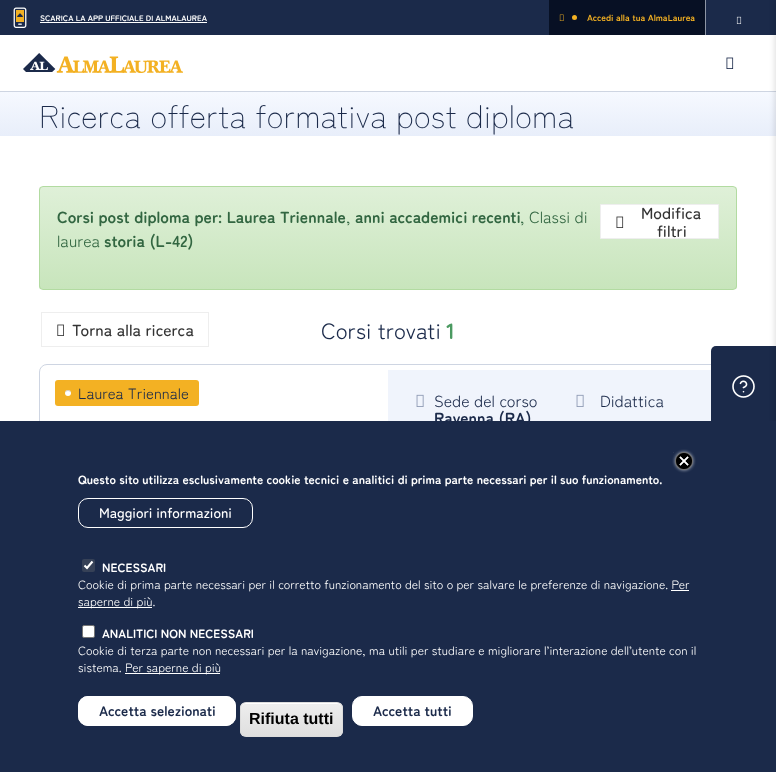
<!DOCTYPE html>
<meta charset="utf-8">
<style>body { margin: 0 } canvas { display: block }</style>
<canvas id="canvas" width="776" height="772"></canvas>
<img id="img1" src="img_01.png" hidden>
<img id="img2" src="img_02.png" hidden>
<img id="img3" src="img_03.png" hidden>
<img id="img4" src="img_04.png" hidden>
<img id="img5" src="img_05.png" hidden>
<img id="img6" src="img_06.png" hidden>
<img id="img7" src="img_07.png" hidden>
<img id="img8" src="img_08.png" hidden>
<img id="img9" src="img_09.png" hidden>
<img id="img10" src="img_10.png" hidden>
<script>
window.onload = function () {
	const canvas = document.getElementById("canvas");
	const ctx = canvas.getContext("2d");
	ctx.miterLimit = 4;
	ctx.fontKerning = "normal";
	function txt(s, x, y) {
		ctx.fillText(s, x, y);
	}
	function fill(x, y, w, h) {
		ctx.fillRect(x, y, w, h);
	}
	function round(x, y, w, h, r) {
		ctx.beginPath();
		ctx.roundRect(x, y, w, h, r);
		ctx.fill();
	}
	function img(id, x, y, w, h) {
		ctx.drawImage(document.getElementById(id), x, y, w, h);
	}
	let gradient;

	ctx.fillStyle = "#FFFFFF";
	fill(0, 0, 776, 772);
	ctx.fillStyle = "#1B2A4A";
	fill(0, 0, 776, 35);
	img("img1", 13, 7, 14, 21);
	ctx.fillStyle = "#FFFFFF";
	fill(40, 22, 167, 1);
	ctx.fillStyle = "#071024";
	fill(549, 0, 156, 35);
	img("img2", 559, 14, 5, 7);
	ctx.fillStyle = "#F3B123";
	ctx.beginPath();
	ctx.arc(574.5, 17.5, 2.5, 0, Math.PI * 2);
	ctx.fill();
	ctx.fillStyle = "#8D95A5";
	fill(705, 0, 1, 35);
	img("img3", 736, 16, 6, 8);
	img("img4", 23, 53, 160, 20);
	img("img5", 726, 57, 8, 12);
	ctx.beginPath();
	ctx.roundRect(39.5, 364.5, 697, 305, 7.5);
	ctx.strokeStyle = "#CED5E2";
	ctx.stroke();
	ctx.fillStyle = "#1B2A4A";
	ctx.beginPath();
	ctx.roundRect(711, 346, 65, 80, [5, 0, 0, 5]);
	ctx.fill();
	gradient = ctx.createLinearGradient(388, 92, 388, 136);
	gradient.addColorStop(0, "#F6F9FF");
	gradient.addColorStop(1, "#E8EEFA");
	ctx.fillStyle = gradient;
	fill(0, 92, 776, 44);
	ctx.fillStyle = "#CED5E2";
	fill(0, 91, 776, 1);
	ctx.fillStyle = "rgba(0, 0, 0, 0.1)";
	ctx.filter = "blur(2.5px)";
	ctx.beginPath();
	ctx.rect(774, 0, 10, 772);
	ctx.fill();
	ctx.filter = "none";
	img("img6", 732, 375, 23, 23);
	ctx.save();
	ctx.beginPath();
	ctx.roundRect(39, 186, 698, 104, 4);
	ctx.clip();
	gradient = ctx.createLinearGradient(388, 187, 388, 289);
	gradient.addColorStop(0, "#DFF0D8");
	gradient.addColorStop(1, "#C8E5BC");
	ctx.fillStyle = gradient;
	fill(39, 187, 698, 102);
	ctx.restore();
	ctx.beginPath();
	ctx.roundRect(39.5, 186.5, 697, 103, 3.5);
	ctx.strokeStyle = "#B2DBA1";
	ctx.stroke();
	ctx.fillStyle = "#FFFFFF";
	ctx.beginPath();
	ctx.rect(600.5, 204.5, 118, 34);
	ctx.fill();
	ctx.strokeStyle = "#EEEEEE";
	ctx.stroke();
	img("img7", 616, 216, 8, 12);
	ctx.strokeRect(41.5, 312.5, 167, 34);
	img("img8", 57, 324, 7, 12);
	ctx.fillStyle = "#F3B123";
	round(55, 380, 144, 26, 3);
	ctx.fillStyle = "#FFFFFF";
	ctx.beginPath();
	ctx.arc(68, 393, 3, 0, Math.PI * 2);
	ctx.fill();
	ctx.fillStyle = "rgba(0, 0, 0, 0.25)";
	ctx.beginPath();
	ctx.moveTo(68, 391);
	ctx.bezierCurveTo(70, 391, 71, 392, 71, 393.5);
	ctx.bezierCurveTo(71.5, 389, 64.5, 389, 65, 393.5);
	ctx.bezierCurveTo(65, 392, 66, 391, 68, 391);
	ctx.closePath();
	ctx.fill();
	ctx.fillStyle = "#F0F4FC";
	fill(388, 370, 323, 51);
	img("img9", 416, 394, 8, 13);
	img("img9", 576, 394, 8, 13);
	ctx.fillStyle = "#1B2A4A";
	fill(0, 421, 776, 351);
	img("img10", 672, 449, 24, 24);
	ctx.beginPath();
	ctx.roundRect(78.5, 498.5, 174, 29, 9.5);
	ctx.strokeStyle = "#FFFFFF";
	ctx.stroke();
	ctx.fillStyle = "#364157";
	round(82, 559, 13, 13, 2);
	ctx.beginPath();
	ctx.moveTo(84.5, 565.5);
	ctx.lineTo(87, 568);
	ctx.lineTo(92.5, 561.5);
	ctx.lineWidth = 2.1;
	ctx.stroke();
	ctx.fillStyle = "#FFFFFF";
	fill(671, 590, 18, 1);
	fill(78, 607, 74, 1);
	ctx.beginPath();
	ctx.roundRect(82.5, 625.5, 12, 12, 1.5);
	ctx.fill();
	ctx.strokeStyle = "#767676";
	ctx.lineWidth = 1;
	ctx.stroke();
	fill(125, 673, 95, 1);
	round(78, 696, 158, 30, 10);
	ctx.beginPath();
	ctx.moveTo(88, 698);
	ctx.lineTo(226, 698);
	ctx.bezierCurveTo(231, 698, 235, 702, 235, 707);
	ctx.bezierCurveTo(235, 691, 211, 697, 203, 697);
	ctx.lineTo(111, 697);
	ctx.bezierCurveTo(103, 697, 79, 691, 79, 707);
	ctx.bezierCurveTo(79, 702, 83, 698, 88, 698);
	ctx.closePath();
	ctx.fill();
	ctx.beginPath();
	ctx.roundRect(78.5, 696.5, 157, 29, 9.5);
	ctx.strokeStyle = "#FFFFFF";
	ctx.stroke();
	ctx.save();
	ctx.beginPath();
	ctx.roundRect(240, 702, 103, 35, 6);
	ctx.clip();
	gradient = ctx.createLinearGradient(292, 703, 292, 736);
	gradient.addColorStop(0.05, "#EDEDED");
	gradient.addColorStop(1, "#DFDFDF");
	ctx.fillStyle = gradient;
	fill(240, 703, 103, 33);
	ctx.restore();
	ctx.beginPath();
	ctx.moveTo(246, 704);
	ctx.lineTo(337, 704);
	ctx.bezierCurveTo(340, 704, 342, 706, 342, 709);
	ctx.bezierCurveTo(342, 699, 327, 703, 322, 703);
	ctx.lineTo(261, 703);
	ctx.bezierCurveTo(256, 703, 241, 699, 241, 709);
	ctx.bezierCurveTo(241, 706, 243, 704, 246, 704);
	ctx.closePath();
	ctx.fill();
	ctx.beginPath();
	ctx.roundRect(240.5, 702.5, 102, 34, 5.5);
	ctx.strokeStyle = "#DCDCDC";
	ctx.stroke();
	ctx.beginPath();
	ctx.roundRect(352.5, 696.5, 120, 29, 9.5);
	ctx.fill();
	ctx.strokeStyle = "#FFFFFF";
	ctx.stroke();
	ctx.font = "bold 8px Zen Maru Gothic";
	txt("SCARICA LA APP UFFICIALE DI ALMALAUREA", 40, 21);
	ctx.font = "bold 9px Zen Maru Gothic";
	ctx.fillStyle = "#F3B123";
	txt("Accedi alla tua AlmaLaurea", 587, 21);
	ctx.font = "300 31.5px Zen Maru Gothic";
	ctx.fillStyle = "#1B2A4A";
	txt("Ricerca offerta formativa post diploma", 39, 128);
	ctx.font = "bold 16px Zen Maru Gothic";
	ctx.fillStyle = "#326641";
	txt("Corsi post diploma per: Laurea Triennale", 57, 223);
	ctx.font = "16px Zen Maru Gothic";
	txt(",", 346, 223);
	ctx.font = "bold 16px Zen Maru Gothic";
	txt("anni accademici recenti", 355, 223);
	ctx.font = "16px Zen Maru Gothic";
	txt(", Classi di", 520, 223);
	txt("laurea", 57, 247);
	ctx.font = "bold 16px Zen Maru Gothic";
	txt("storia (L-42)", 104, 247);
	ctx.font = "500 16px Zen Maru Gothic";
	ctx.fillStyle = "#333333";
	txt("Modifica", 641, 219);
	txt("filtri", 657, 237);
	txt("Torna alla ricerca", 72, 336);
	ctx.font = "22px Zen Maru Gothic";
	ctx.fillStyle = "#1B2A4A";
	txt("Corsi trovati", 321, 339);
	ctx.font = "bold 22px Zen Maru Gothic";
	ctx.fillStyle = "#4B9A61";
	txt("1", 446, 339);
	ctx.font = "15px Zen Maru Gothic";
	ctx.fillStyle = "#1B2A4A";
	txt("Laurea Triennale", 78, 399);
	ctx.font = "16px Zen Maru Gothic";
	txt("Sede del corso", 434, 407);
	ctx.font = "bold 16px Zen Maru Gothic";
	txt("Ravenna (RA)", 434, 424);
	ctx.font = "16px Zen Maru Gothic";
	txt("Didattica", 600, 407);
	ctx.font = "bold 12px Zen Maru Gothic";
	ctx.fillStyle = "#FFFFFF";
	txt("Questo sito utilizza esclusivamente cookie tecnici e analitici di prima parte necessari per il suo funzionamento.", 78, 484);
	ctx.font = "500 14px Zen Maru Gothic";
	txt("Maggiori informazioni", 99, 518);
	ctx.font = "bold 12px Zen Maru Gothic";
	txt("NECESSARI", 102, 572);
	ctx.font = "12px Zen Maru Gothic";
	txt("Cookie di prima parte necessari per il corretto funzionamento del sito o per salvare le preferenze di navigazione. Per", 78, 589);
	txt("saperne di più.", 78, 606);
	ctx.font = "bold 12px Zen Maru Gothic";
	txt("ANALITICI NON NECESSARI", 102, 638);
	ctx.font = "12px Zen Maru Gothic";
	txt("Cookie di terza parte non necessari per la navigazione, ma utili per studiare e migliorare l’interazione dell’utente con il", 78, 655);
	txt("sistema.", 78, 672);
	txt("Per saperne di più", 125, 672);
	ctx.font = "bold 14px Zen Maru Gothic";
	ctx.fillStyle = "#1B2A4A";
	txt("Accetta selezionati", 99, 716);
	ctx.font = "bold 16px Liberation Sans";
	ctx.fillStyle = "#000000";
	txt("Rifiuta tutti", 249, 724);
	ctx.font = "bold 14px Zen Maru Gothic";
	ctx.fillStyle = "#1B2A4A";
	txt("Accetta tutti", 373, 716);
};
</script>
